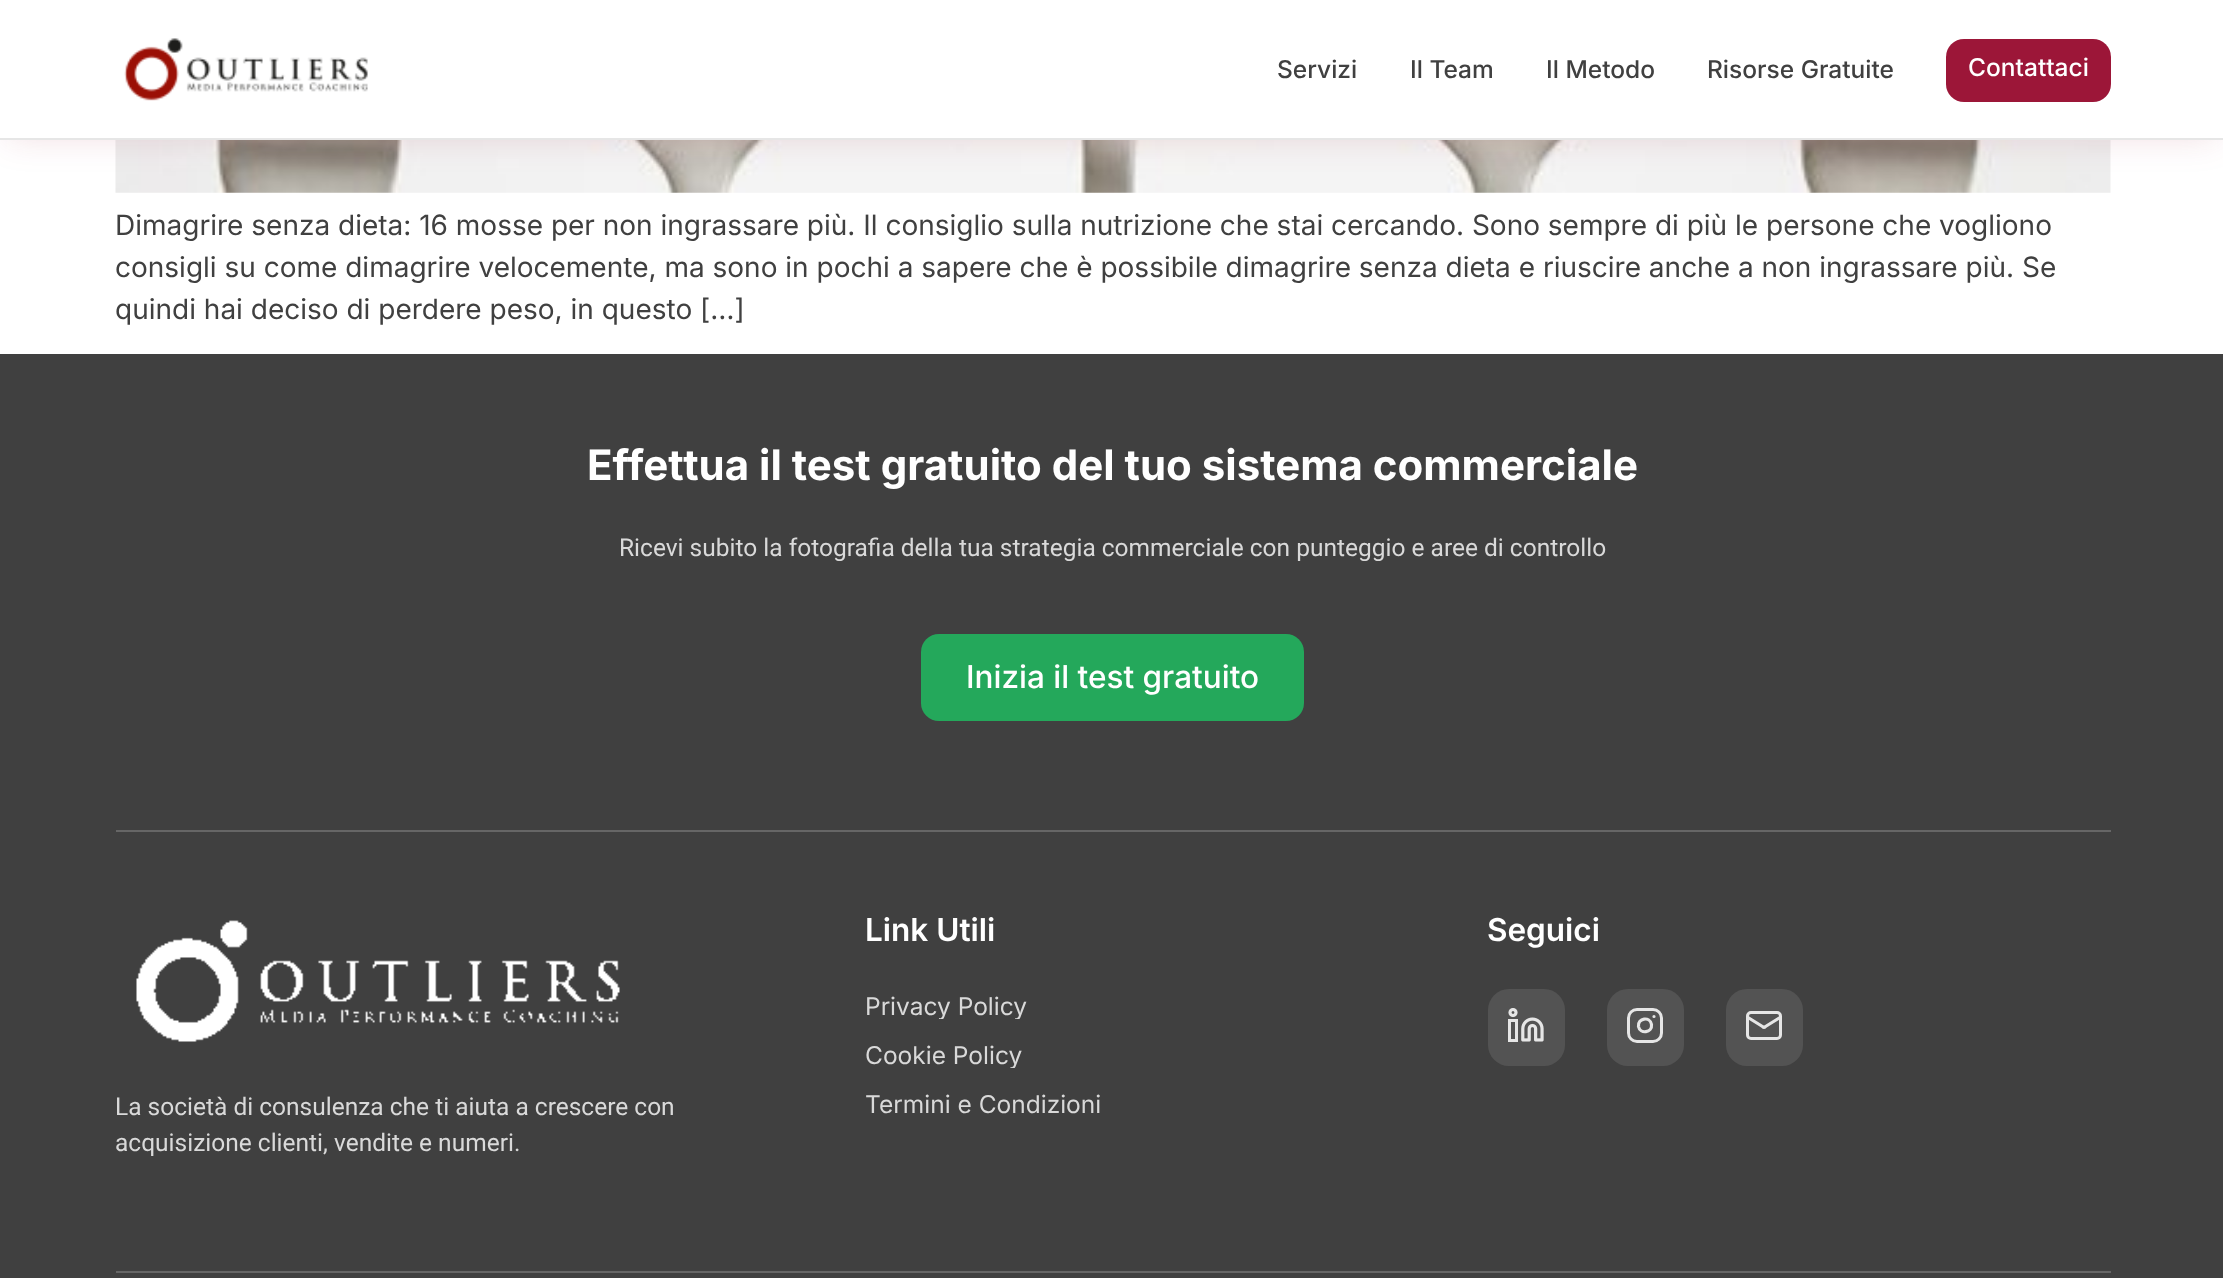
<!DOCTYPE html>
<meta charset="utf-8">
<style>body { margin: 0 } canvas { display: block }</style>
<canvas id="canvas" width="2223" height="1278"></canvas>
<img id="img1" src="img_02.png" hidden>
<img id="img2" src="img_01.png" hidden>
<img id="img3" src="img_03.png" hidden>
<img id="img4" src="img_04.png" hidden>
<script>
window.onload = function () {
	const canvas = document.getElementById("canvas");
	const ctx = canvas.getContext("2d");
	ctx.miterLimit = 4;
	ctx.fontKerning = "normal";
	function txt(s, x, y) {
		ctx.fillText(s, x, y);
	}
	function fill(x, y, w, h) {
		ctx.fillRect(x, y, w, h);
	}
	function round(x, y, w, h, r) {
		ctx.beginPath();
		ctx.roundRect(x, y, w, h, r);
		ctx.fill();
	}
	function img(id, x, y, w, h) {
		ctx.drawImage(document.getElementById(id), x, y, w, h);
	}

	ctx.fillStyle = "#FFFFFF";
	fill(0, 0, 2223, 1278);
	img("img1", 115, 140, 1996, 53);
	ctx.fillStyle = "rgba(156, 22, 56, 0.15)";
	ctx.filter = "blur(17.5px)";
	ctx.beginPath();
	ctx.rect(7, 11, 2210, 126);
	ctx.fill();
	ctx.filter = "none";
	ctx.fillStyle = "#FFFFFF";
	fill(0, 0, 2223, 138);
	ctx.fillStyle = "#E6E6E6";
	fill(0, 138, 2223, 2);
	img("img2", 124, 38, 244, 63);
	ctx.fillStyle = "#9C1638";
	round(1946, 39, 165, 63, 18);
	ctx.fillStyle = "#404040";
	fill(0, 354, 2223, 924);
	ctx.fillStyle = "#24A85B";
	round(921, 634, 383, 87, 18);
	ctx.fillStyle = "#666666";
	fill(116, 830, 1995, 2);
	fill(116, 1271, 1995, 2);
	ctx.fillStyle = "#535353";
	round(1488, 989, 77, 77, 21);
	img("img3", 1508, 1008, 36, 34);
	round(1607, 989, 77, 77, 21);
	ctx.beginPath();
	ctx.roundRect(1628.5, 1009.5, 33, 32, 8.5);
	ctx.strokeStyle = "#E6E6E6";
	ctx.lineWidth = 3;
	ctx.stroke();
	ctx.beginPath();
	ctx.moveTo(1651.5, 1024.5);
	ctx.bezierCurveTo(1652.5, 1033, 1640, 1034.5, 1638.5, 1026.5);
	ctx.bezierCurveTo(1637.5, 1018, 1650, 1016, 1651.5, 1024.5);
	ctx.closePath();
	ctx.moveTo(1654, 1016.5);
	ctx.lineTo(1654, 1016.5);
	ctx.lineWidth = 3.2;
	ctx.lineCap = "round";
	ctx.lineJoin = "round";
	ctx.stroke();
	round(1726, 989, 77, 77, 21);
	ctx.beginPath();
	ctx.roundRect(1747.5, 1012.5, 33, 26, 3.5);
	ctx.lineWidth = 3;
	ctx.lineJoin = "miter";
	ctx.stroke();
	ctx.beginPath();
	ctx.moveTo(1780, 1017.5);
	ctx.lineTo(1765.5, 1026.5);
	ctx.bezierCurveTo(1764.5, 1027.5, 1763.5, 1027.5, 1762.5, 1026.5);
	ctx.lineTo(1748, 1017.5);
	ctx.lineWidth = 3.2;
	ctx.lineJoin = "round";
	ctx.stroke();
	img("img4", 136, 920, 484, 122);
	ctx.font = "500 24.5px Inter";
	ctx.fillStyle = "#404040";
	txt("Servizi", 1277, 78);
	txt("Il Team", 1410, 78);
	txt("Il Metodo", 1546, 78);
	txt("Risorse Gratuite", 1707, 78);
	ctx.fillStyle = "#FFFFFF";
	txt("Contattaci", 1968, 76);
	ctx.font = "28px Inter";
	ctx.fillStyle = "#404040";
	txt("Dimagrire senza dieta: 16 mosse per non ingrassare più. Il consiglio sulla nutrizione che stai cercando. Sono sempre di più le persone che vogliono", 115, 235);
	txt("consigli su come dimagrire velocemente, ma sono in pochi a sapere che è possibile dimagrire senza dieta e riuscire anche a non ingrassare più. Se", 115, 277);
	txt("quindi hai deciso di perdere peso, in questo […]", 115, 319);
	ctx.font = "bold 42px Inter";
	ctx.fillStyle = "#FFFFFF";
	txt("Effettua il test gratuito del tuo sistema commerciale", 587, 480);
	ctx.font = "24.5px Roboto";
	ctx.fillStyle = "#D9D9D9";
	txt("Ricevi subito la fotografia della tua strategia commerciale con punteggio e aree di controllo", 619, 556);
	ctx.font = "500 31.5px Inter";
	ctx.fillStyle = "#FFFFFF";
	txt("Inizia il test gratuito", 966, 688);
	ctx.font = "600 31.5px Inter";
	txt("Link Utili", 865, 941);
	ctx.font = "24.5px Inter";
	ctx.fillStyle = "#D9D9D9";
	txt("Privacy Policy", 865, 1015);
	ctx.fillStyle = "#404040";
	fill(938, 1019, 82, 2);
	ctx.fillStyle = "#D9D9D9";
	txt("Cookie Policy", 865, 1064);
	ctx.fillStyle = "#404040";
	fill(1010, 1068, 5, 2);
	ctx.fillStyle = "#D9D9D9";
	txt("Termini e Condizioni", 865, 1113);
	ctx.font = "600 31.5px Inter";
	ctx.fillStyle = "#FFFFFF";
	txt("Seguici", 1487, 941);
	ctx.font = "24.5px Roboto";
	ctx.fillStyle = "#D9D9D9";
	txt("La società di consulenza che ti aiuta a crescere con", 115, 1115);
	txt("acquisizione clienti, vendite e numeri.", 115, 1151);
};
</script>
